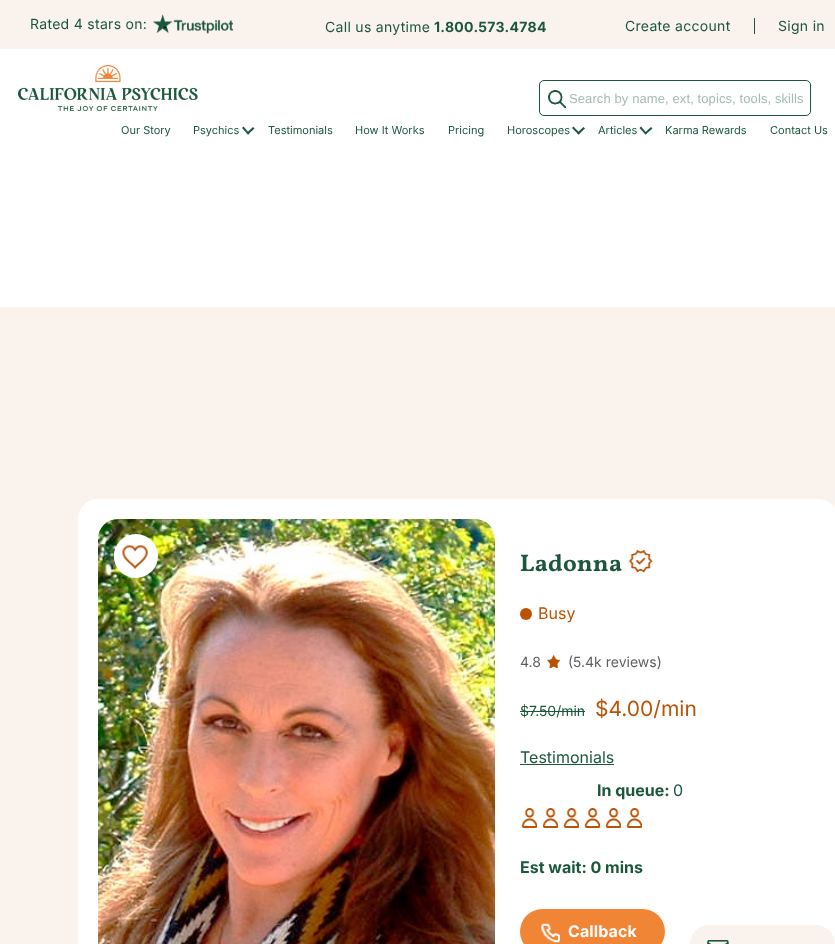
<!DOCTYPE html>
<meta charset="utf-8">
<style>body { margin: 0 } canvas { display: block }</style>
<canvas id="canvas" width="835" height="944"></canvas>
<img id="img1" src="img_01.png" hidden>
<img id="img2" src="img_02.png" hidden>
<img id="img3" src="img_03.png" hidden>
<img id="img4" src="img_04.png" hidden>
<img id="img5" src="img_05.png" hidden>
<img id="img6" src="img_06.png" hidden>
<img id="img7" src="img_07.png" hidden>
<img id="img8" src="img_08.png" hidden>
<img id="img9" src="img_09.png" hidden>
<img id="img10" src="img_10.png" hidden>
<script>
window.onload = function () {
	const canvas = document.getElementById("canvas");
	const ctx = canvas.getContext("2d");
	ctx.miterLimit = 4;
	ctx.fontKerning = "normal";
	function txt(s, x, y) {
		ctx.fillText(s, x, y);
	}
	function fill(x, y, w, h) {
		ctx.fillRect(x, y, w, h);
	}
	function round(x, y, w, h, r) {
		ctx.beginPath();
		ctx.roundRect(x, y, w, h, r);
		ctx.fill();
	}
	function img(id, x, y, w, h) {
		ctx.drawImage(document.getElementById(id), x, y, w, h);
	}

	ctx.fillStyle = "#FFFFFF";
	fill(0, 0, 835, 944);
	ctx.fillStyle = "#FAF2ED";
	fill(0, 0, 835, 49);
	img("img1", 153, 14, 80, 20);
	ctx.fillStyle = "#1C573D";
	fill(754, 18, 1, 16);
	img("img2", 18, 64, 180, 47);
	ctx.beginPath();
	ctx.roundRect(539.5, 80.5, 271, 35, 4.5);
	ctx.strokeStyle = "#1C573D";
	ctx.stroke();
	img("img3", 548, 90, 18, 18);
	ctx.beginPath();
	ctx.moveTo(253, 127);
	ctx.lineTo(254.5, 128.5);
	ctx.lineTo(248, 134.5);
	ctx.lineTo(246.5, 133);
	ctx.closePath();
	ctx.fill();
	ctx.beginPath();
	ctx.moveTo(243.5, 126.5);
	ctx.lineTo(249.5, 133.5);
	ctx.lineTo(248, 134.5);
	ctx.lineTo(242, 128);
	ctx.closePath();
	ctx.fill();
	ctx.beginPath();
	ctx.moveTo(583.5, 127);
	ctx.lineTo(585, 128.5);
	ctx.lineTo(578.5, 134.5);
	ctx.lineTo(577, 133);
	ctx.closePath();
	ctx.fill();
	ctx.beginPath();
	ctx.moveTo(573.5, 126.5);
	ctx.lineTo(580, 133.5);
	ctx.lineTo(578.5, 134.5);
	ctx.lineTo(572, 128);
	ctx.closePath();
	ctx.fill();
	ctx.beginPath();
	ctx.moveTo(651, 127);
	ctx.lineTo(652.5, 128.5);
	ctx.lineTo(645.5, 134.5);
	ctx.lineTo(644.5, 133);
	ctx.closePath();
	ctx.fill();
	ctx.beginPath();
	ctx.moveTo(641, 126.5);
	ctx.lineTo(647, 133.5);
	ctx.lineTo(645.5, 134.5);
	ctx.lineTo(639.5, 128);
	ctx.closePath();
	ctx.fill();
	ctx.fillStyle = "#FAF2ED";
	fill(0, 307, 835, 637);
	ctx.fillStyle = "#FFFFFF";
	round(78, 499, 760, 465, 20);
	img("img4", 98, 519, 397, 425);
	ctx.beginPath();
	ctx.arc(136, 556, 22, 0, Math.PI * 2);
	ctx.fill();
	img("img5", 114, 537, 35, 41);
	img("img6", 628, 550, 25, 23);
	ctx.fillStyle = "#BB5204";
	ctx.beginPath();
	ctx.arc(526, 614, 6, 0, Math.PI * 2);
	ctx.fill();
	img("img7", 547, 655, 13, 14);
	ctx.fillStyle = "#1C573D";
	fill(520, 711, 65, 1);
	fill(520, 764, 94, 1);
	img("img8", 521, 808, 16, 20);
	img("img8", 542, 808, 16, 20);
	img("img8", 563, 808, 16, 20);
	img("img8", 584, 808, 16, 20);
	img("img8", 605, 808, 16, 20);
	img("img8", 626, 808, 16, 20);
	ctx.fillStyle = "#F18536";
	round(520, 909, 145, 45, 22.5);
	img("img9", 541, 923, 19, 20);
	ctx.fillStyle = "#FAF2ED";
	ctx.beginPath();
	ctx.roundRect(690, 925, 145, 19, [22.5, 22.5, 0, 0]);
	ctx.fill();
	img("img10", 707, 940, 22, 4);
	ctx.letterSpacing = "0.3px";
	ctx.font = "14px Inter";
	ctx.fillStyle = "#1C573D";
	txt("Rated 4 stars on:", 30, 29);
	txt("Call us anytime", 325, 32);
	ctx.font = "bold 14px Inter";
	txt("1.800.573.4784", 434, 32);
	ctx.font = "14px Inter";
	txt("Create account", 625, 31);
	txt("Sign in", 778, 31);
	ctx.letterSpacing = "0.1px";
	ctx.font = "13px Liberation Sans";
	ctx.fillStyle = "#A4BCB2";
	txt("Search by name, ext, topics, tools, skills", 569, 103);
	ctx.letterSpacing = "0px";
	ctx.font = "11px Inter";
	ctx.fillStyle = "#1C573D";
	txt("Our Story", 121, 134);
	txt("Psychics", 193, 134);
	txt("Testimonials", 268, 134);
	txt("How It Works", 355, 134);
	txt("Pricing", 448, 134);
	txt("Horoscopes", 507, 134);
	txt("Articles", 598, 134);
	txt("Karma Rewards", 665, 134);
	txt("Contact Us", 770, 134);
	ctx.letterSpacing = "0.25px";
	ctx.font = "bold 24px Vollkorn";
	txt("Ladonna", 520, 571);
	ctx.letterSpacing = "0px";
	ctx.font = "16px Inter";
	ctx.fillStyle = "#BB5204";
	txt("Busy", 538, 619);
	ctx.font = "14px Inter";
	ctx.fillStyle = "#5F5F5F";
	txt("4.8", 520, 667);
	txt("(5.4k reviews)", 568, 667);
	ctx.fillStyle = "#1C573D";
	txt("$7.50/min", 520, 716);
	ctx.font = "21px Inter";
	ctx.fillStyle = "#BB5204";
	txt("$4.00/min", 595, 716);
	ctx.font = "16px Inter";
	ctx.fillStyle = "#1C573D";
	txt("Testimonials", 520, 763);
	ctx.font = "bold 16px Inter";
	txt("In queue:", 597, 796);
	ctx.font = "16px Inter";
	txt("0", 673, 796);
	ctx.font = "bold 16px Inter";
	txt("Est wait: 0 mins", 520, 873);
	ctx.letterSpacing = "0.1px";
	ctx.fillStyle = "#FFFFFF";
	txt("Callback", 568, 937);
};
</script>
